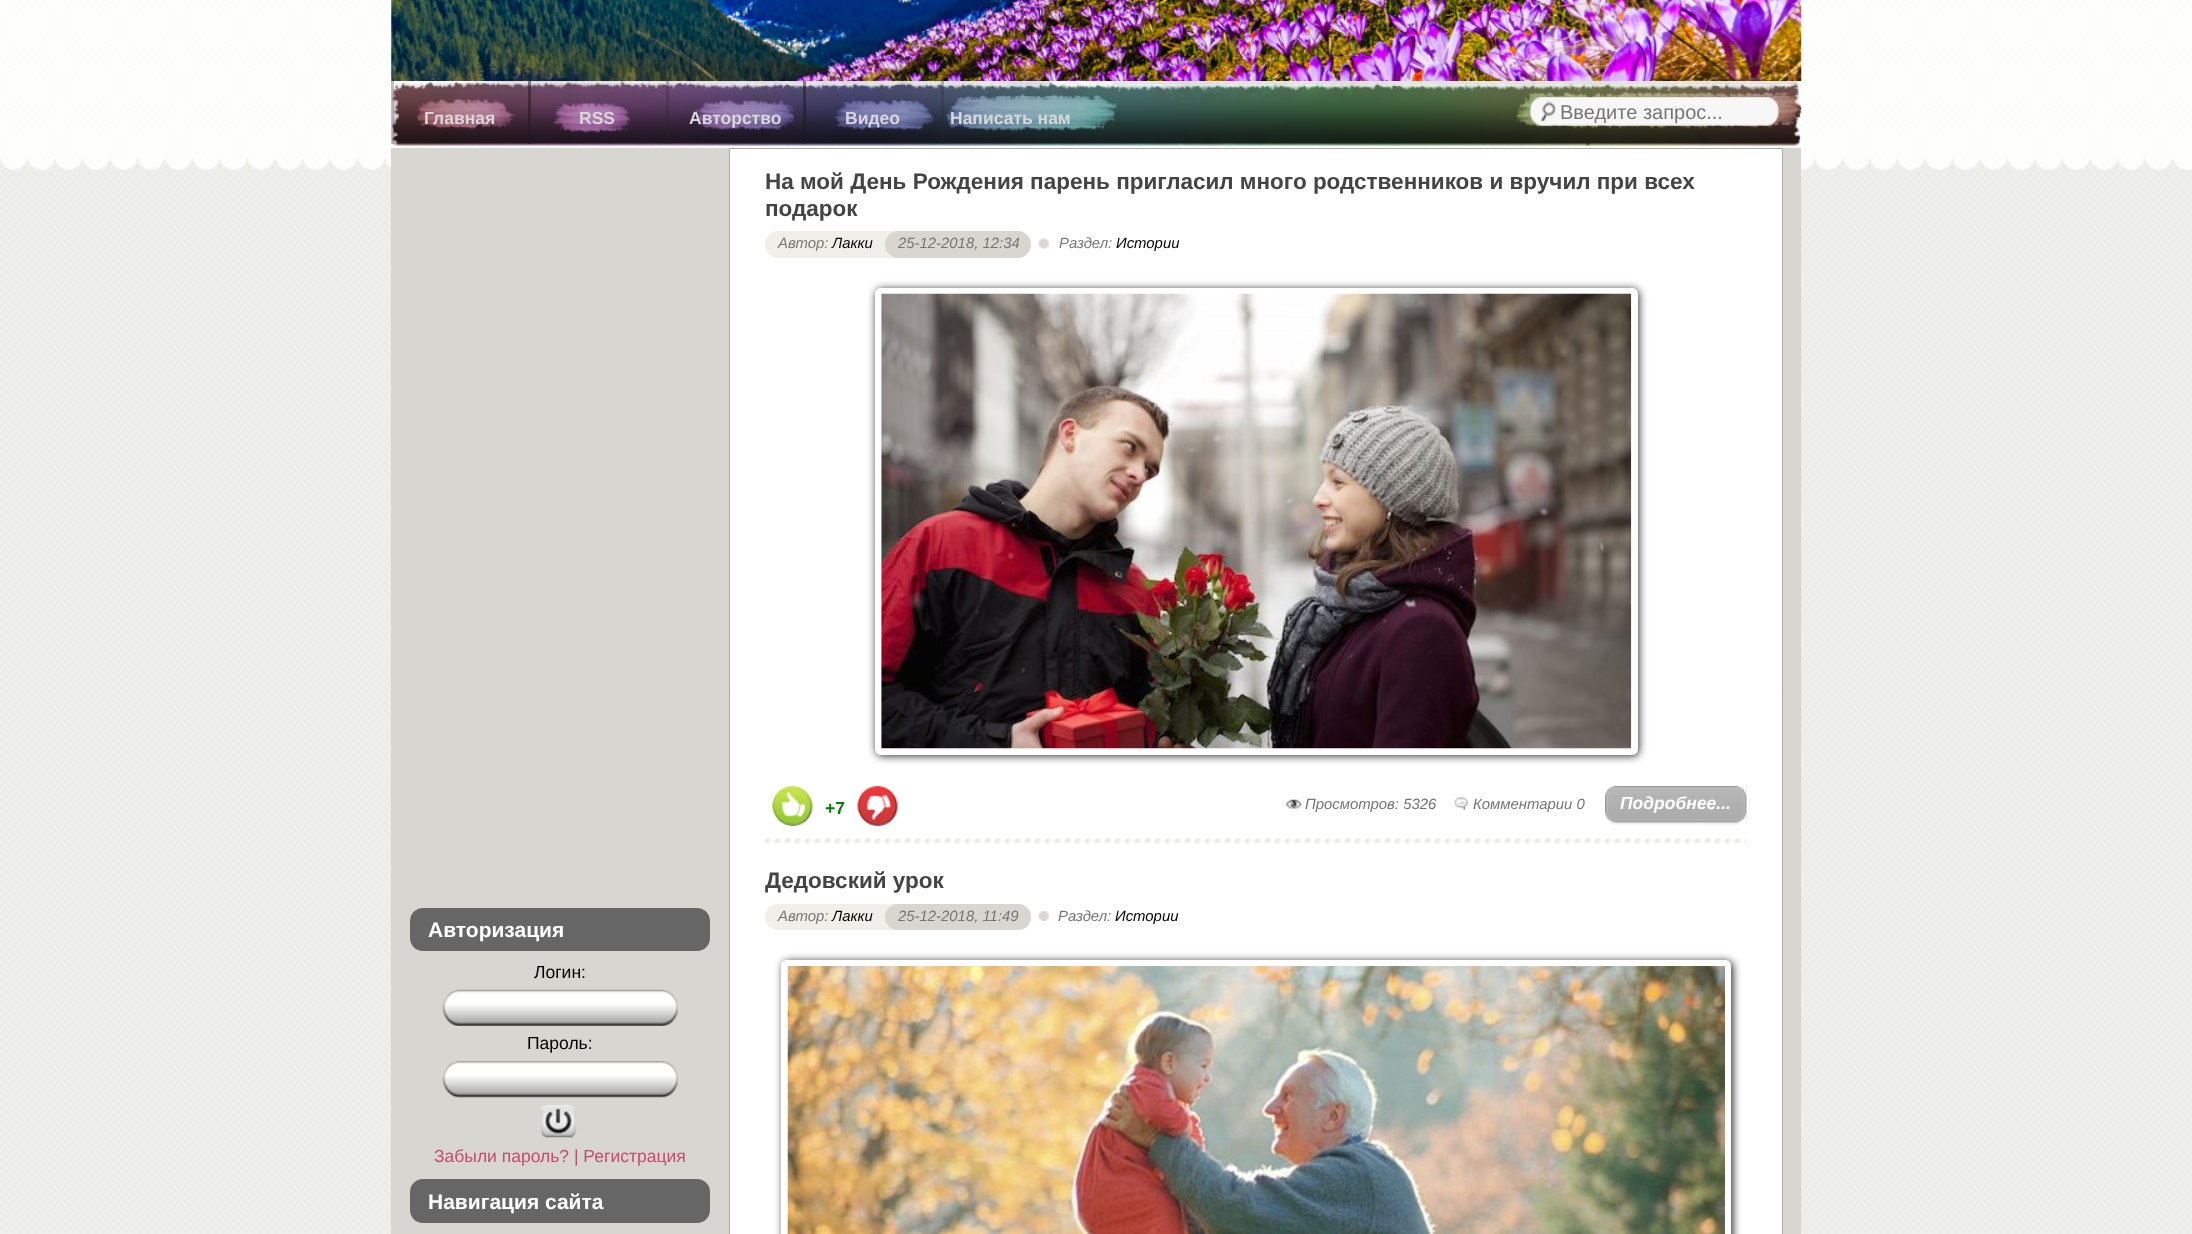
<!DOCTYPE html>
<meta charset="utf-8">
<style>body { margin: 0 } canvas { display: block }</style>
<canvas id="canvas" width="2192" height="1234"></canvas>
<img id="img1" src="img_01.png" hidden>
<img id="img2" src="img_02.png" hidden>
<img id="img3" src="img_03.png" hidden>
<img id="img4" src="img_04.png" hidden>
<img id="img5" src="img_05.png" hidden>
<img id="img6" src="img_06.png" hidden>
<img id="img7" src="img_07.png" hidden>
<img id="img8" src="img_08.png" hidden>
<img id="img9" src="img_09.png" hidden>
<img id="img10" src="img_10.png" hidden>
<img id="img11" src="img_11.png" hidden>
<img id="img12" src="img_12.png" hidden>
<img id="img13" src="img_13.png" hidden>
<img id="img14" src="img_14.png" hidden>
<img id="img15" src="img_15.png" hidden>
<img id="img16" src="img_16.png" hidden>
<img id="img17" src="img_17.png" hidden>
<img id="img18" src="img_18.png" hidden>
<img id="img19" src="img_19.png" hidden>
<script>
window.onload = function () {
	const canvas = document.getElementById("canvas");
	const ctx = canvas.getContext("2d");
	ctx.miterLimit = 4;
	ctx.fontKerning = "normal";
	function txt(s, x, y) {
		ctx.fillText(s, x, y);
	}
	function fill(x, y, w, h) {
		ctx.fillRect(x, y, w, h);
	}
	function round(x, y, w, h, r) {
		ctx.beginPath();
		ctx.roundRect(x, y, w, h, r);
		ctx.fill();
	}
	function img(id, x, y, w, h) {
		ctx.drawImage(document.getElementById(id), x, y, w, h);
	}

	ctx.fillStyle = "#F0F0ED";
	fill(0, 0, 2192, 1234);
	img("img1", 0, 169, 2192, 1064);
	img("img2", 0, 0, 2192, 170);
	img("img3", 391, 0, 1411, 81);
	img("img4", 392, 81, 1410, 65);
	ctx.fillStyle = "rgba(41, 41, 41, 0.29)";
	fill(391, 81, 3, 63);
	ctx.fillStyle = "rgba(27, 27, 27, 0.51)";
	fill(528, 81, 3, 63);
	ctx.fillStyle = "rgba(41, 41, 41, 0.29)";
	fill(666, 81, 3, 63);
	ctx.fillStyle = "rgba(27, 27, 27, 0.51)";
	fill(803, 81, 3, 63);
	ctx.fillStyle = "rgba(41, 41, 41, 0.29)";
	fill(941, 81, 3, 63);
	img("img5", 1530, 97, 249, 29);
	ctx.fillStyle = "#D7D6D1";
	fill(391, 148, 1410, 1086);
	ctx.fillStyle = "#CDCCC5";
	ctx.filter = "blur(0.5px)";
	ctx.beginPath();
	ctx.rect(729, 149, 1054, 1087);
	ctx.fill();
	ctx.filter = "none";
	ctx.fillStyle = "#FFFFFF";
	ctx.beginPath();
	ctx.rect(729.5, 148.5, 1053, 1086);
	ctx.fill();
	ctx.strokeStyle = "#ACABA3";
	ctx.stroke();
	ctx.fillStyle = "#F1F0E8";
	round(765, 231, 266, 27, 13.5);
	ctx.fillStyle = "#D8D6CE";
	round(885, 231, 146, 27, 13.5);
	img("img6", 1038, 238, 11, 11);
	ctx.save();
	ctx.beginPath();
	ctx.moveTo(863, 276);
	ctx.lineTo(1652, 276);
	ctx.lineTo(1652, 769);
	ctx.lineTo(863, 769);
	ctx.closePath();
	ctx.moveTo(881, 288);
	ctx.lineTo(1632, 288);
	ctx.bezierCurveTo(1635.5, 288, 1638, 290.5, 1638, 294);
	ctx.lineTo(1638, 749);
	ctx.bezierCurveTo(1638, 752.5, 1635.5, 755, 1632, 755);
	ctx.lineTo(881, 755);
	ctx.bezierCurveTo(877.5, 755, 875, 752.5, 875, 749);
	ctx.lineTo(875, 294);
	ctx.bezierCurveTo(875, 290.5, 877.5, 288, 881, 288);
	ctx.closePath();
	ctx.clip("evenodd");
	ctx.fillStyle = "#2D2D2D";
	ctx.filter = "blur(4px)";
	ctx.beginPath();
	ctx.roundRect(876, 289, 763, 467, 6);
	ctx.fill();
	ctx.filter = "none";
	ctx.restore();
	img("img7", 881, 293, 751, 456);
	img("img8", 772, 786, 41, 40);
	img("img9", 857, 786, 41, 40);
	img("img10", 1286, 799, 16, 10);
	img("img11", 1453, 797, 16, 13);
	img("img12", 1605, 786, 142, 39);
	img("img13", 1702, 786, 45, 39);
	img("img14", 765, 838, 982, 6);
	ctx.fillStyle = "#F1F0E8";
	round(765, 904, 266, 26, 13);
	ctx.fillStyle = "#D8D6CE";
	round(885, 904, 146, 26, 13);
	img("img15", 1038, 911, 11, 10);
	ctx.save();
	ctx.beginPath();
	ctx.moveTo(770, 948);
	ctx.lineTo(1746, 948);
	ctx.lineTo(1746, 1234);
	ctx.lineTo(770, 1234);
	ctx.closePath();
	ctx.moveTo(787, 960);
	ctx.lineTo(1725, 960);
	ctx.bezierCurveTo(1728.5, 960, 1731, 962.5, 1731, 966);
	ctx.lineTo(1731, 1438);
	ctx.bezierCurveTo(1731, 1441.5, 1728.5, 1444, 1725, 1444);
	ctx.lineTo(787, 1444);
	ctx.bezierCurveTo(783.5, 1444, 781, 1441.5, 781, 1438);
	ctx.lineTo(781, 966);
	ctx.bezierCurveTo(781, 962.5, 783.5, 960, 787, 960);
	ctx.closePath();
	ctx.clip("evenodd");
	ctx.fillStyle = "#2D2D2D";
	ctx.filter = "blur(4px)";
	ctx.beginPath();
	ctx.roundRect(783, 961, 950, 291, 6);
	ctx.fill();
	ctx.filter = "none";
	ctx.restore();
	img("img16", 787, 966, 938, 268);
	ctx.fillStyle = "#666666";
	round(410, 908, 300, 43, 13);
	img("img17", 442, 989, 236, 37);
	img("img18", 442, 1061, 236, 37);
	img("img19", 541, 1105, 36, 33);
	round(410, 1179, 300, 44, 13);
	ctx.font = "bold 17.5px Liberation Sans";
	ctx.fillStyle = "#D8D8D8";
	txt("Главная", 424, 124);
	txt("RSS", 579, 124);
	txt("Авторство", 689, 124);
	txt("Видео", 845, 124);
	txt("Написать нам", 950, 124);
	ctx.font = "20px Liberation Sans";
	ctx.fillStyle = "#757575";
	txt("Введите запрос...", 1560, 119);
	ctx.font = "bold 22.5px Liberation Sans";
	ctx.fillStyle = "#444444";
	txt("На мой День Рождения парень пригласил много родственников и вручил при всех", 765, 189);
	txt("подарок", 765, 216);
	ctx.font = "italic 14.9px Liberation Sans";
	ctx.fillStyle = "#757575";
	txt("Автор:", 778, 248);
	ctx.fillStyle = "#000000";
	txt("Лакки", 832, 248);
	ctx.fillStyle = "#757575";
	txt("25-12-2018, 12:34", 898, 248);
	txt("Раздел:", 1059, 248);
	ctx.fillStyle = "#000000";
	txt("Истории", 1116, 248);
	ctx.font = "bold 17.5px Liberation Sans";
	ctx.fillStyle = "#008000";
	txt("+7", 825, 814);
	ctx.font = "italic 14.9px Liberation Sans";
	ctx.fillStyle = "#757575";
	txt("Просмотров: 5326", 1305, 809);
	txt("Комментарии 0", 1473, 809);
	ctx.font = "italic bold 17.5px Liberation Sans";
	ctx.fillStyle = "#FFFFFF";
	txt("Подробнее...", 1620, 809);
	ctx.font = "bold 22.5px Liberation Sans";
	ctx.fillStyle = "#444444";
	txt("Дедовский урок", 765, 888);
	ctx.font = "italic 14.9px Liberation Sans";
	ctx.fillStyle = "#757575";
	txt("Автор:", 778, 921);
	ctx.fillStyle = "#000000";
	txt("Лакки", 832, 921);
	ctx.fillStyle = "#757575";
	txt("25-12-2018, 11:49", 898, 921);
	txt("Раздел:", 1058, 921);
	ctx.fillStyle = "#000000";
	txt("Истории", 1115, 921);
	ctx.font = "bold 21px Liberation Sans";
	ctx.fillStyle = "#FFFFFF";
	txt("Авторизация", 428, 937);
	ctx.font = "17.5px Liberation Sans";
	ctx.fillStyle = "#000000";
	txt("Логин:", 534, 978);
	txt("Пароль:", 527, 1049);
	ctx.fillStyle = "#C24D6E";
	txt("Забыли пароль? | Регистрация", 434, 1162);
	ctx.font = "bold 21px Liberation Sans";
	ctx.fillStyle = "#FFFFFF";
	txt("Навигация сайта", 428, 1209);
};
</script>
